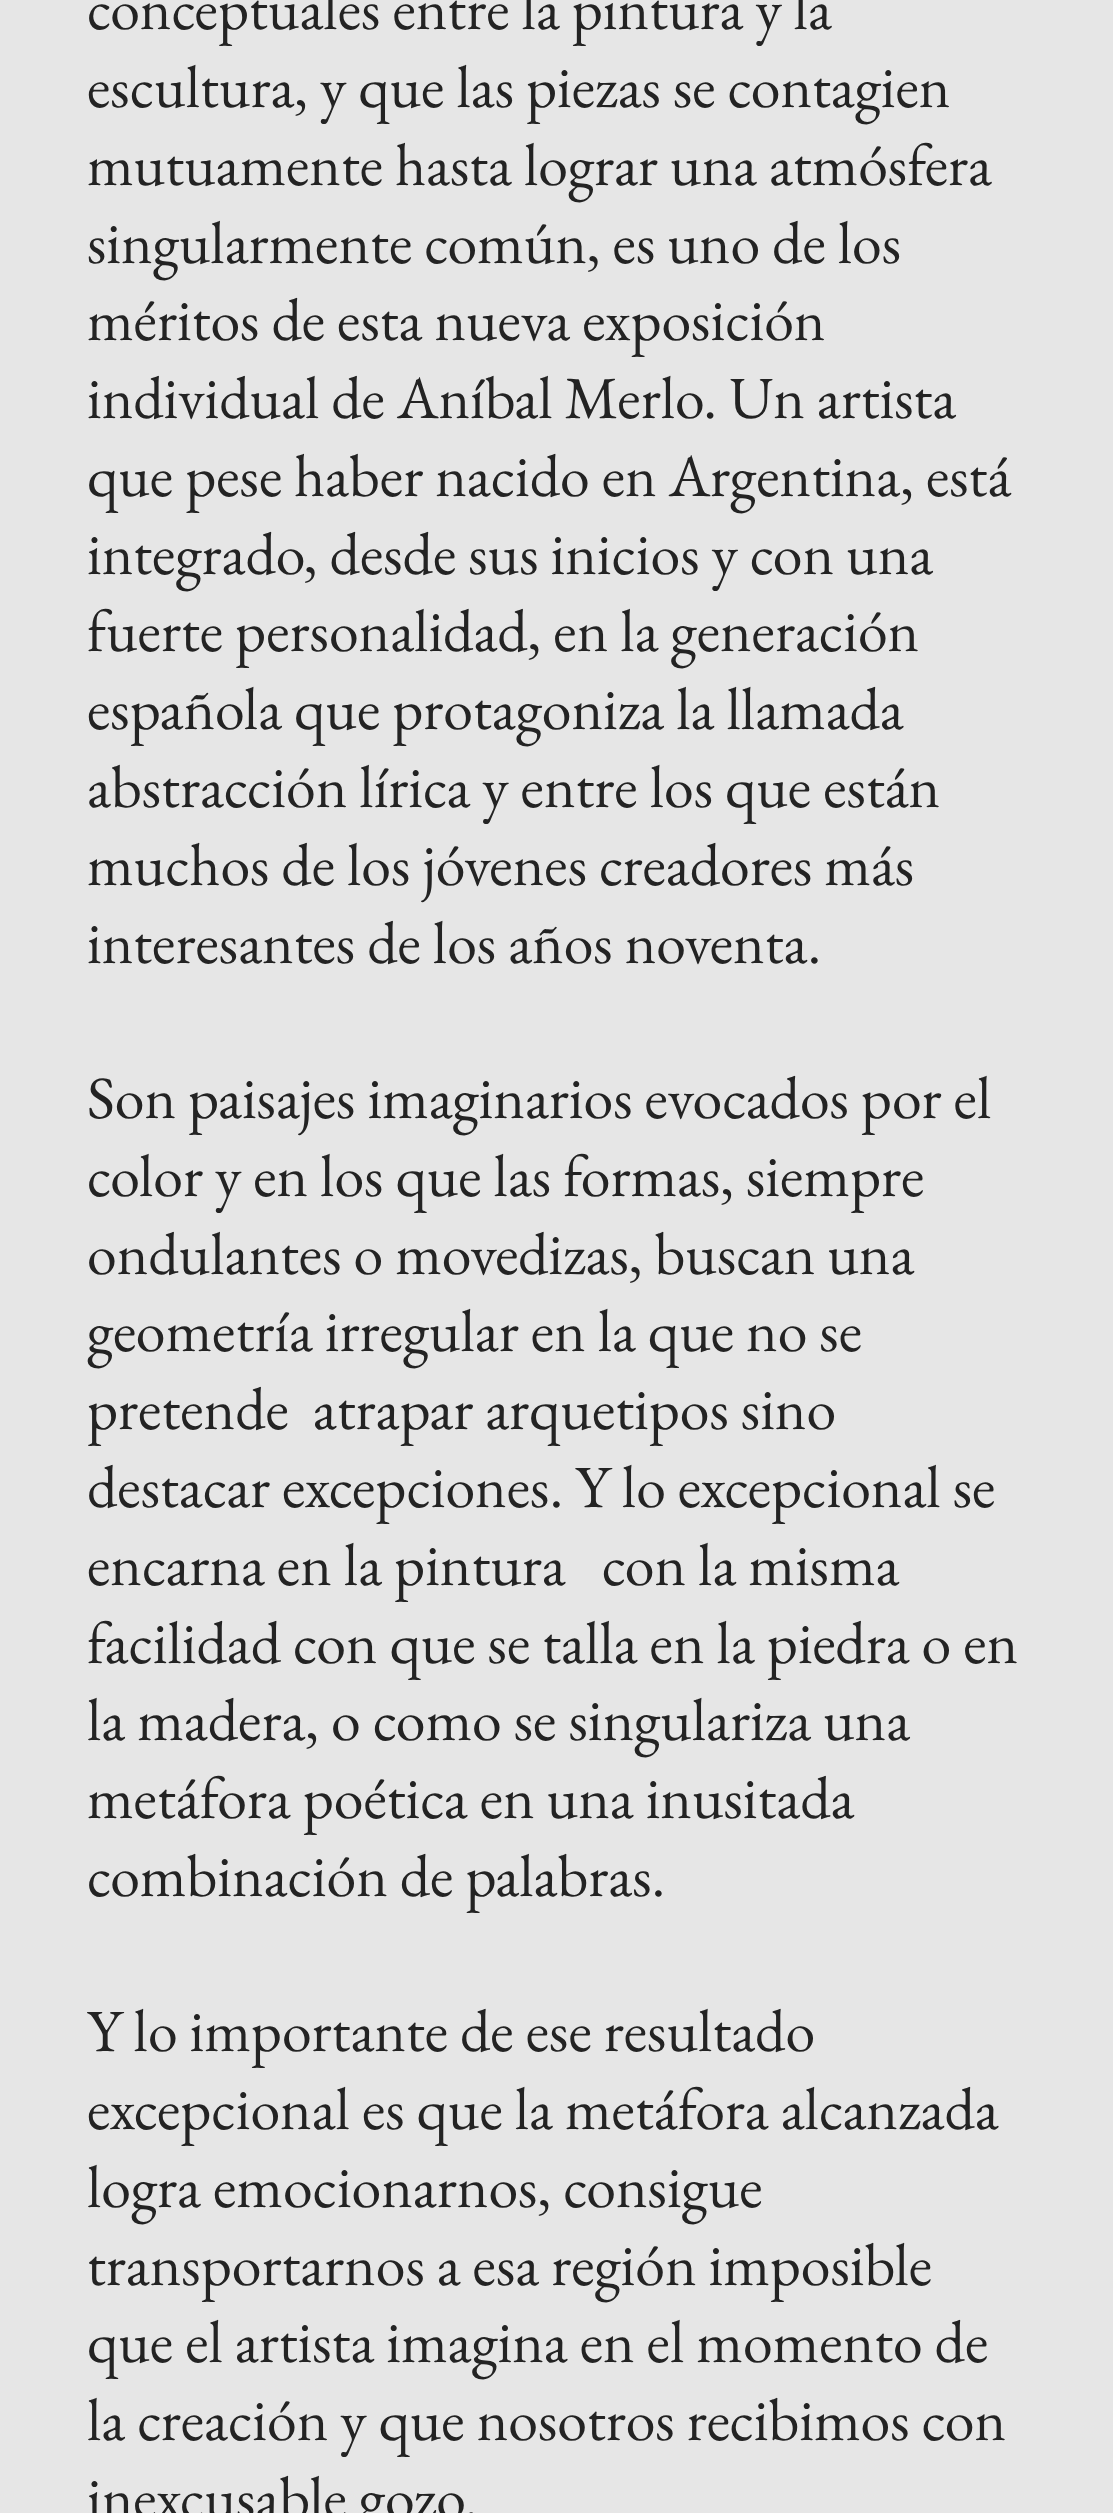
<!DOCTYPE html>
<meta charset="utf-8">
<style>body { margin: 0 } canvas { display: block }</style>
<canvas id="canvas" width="1113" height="2513"></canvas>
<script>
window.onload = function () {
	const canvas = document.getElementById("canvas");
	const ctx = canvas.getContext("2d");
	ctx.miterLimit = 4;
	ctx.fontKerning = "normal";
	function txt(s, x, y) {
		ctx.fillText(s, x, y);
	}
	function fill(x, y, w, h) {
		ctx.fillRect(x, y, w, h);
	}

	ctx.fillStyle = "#E6E6E6";
	fill(0, 0, 1113, 2513);
	ctx.font = "59.9px EB Garamond";
	ctx.fillStyle = "#232323";
	txt("conceptuales entre la pintura y la", 87, 29);
	txt("escultura, y que las piezas se contagien", 87, 107);
	txt("mutuamente hasta lograr una atmósfera", 87, 185);
	txt("singularmente común, es uno de los", 87, 263);
	txt("méritos de esta nueva exposición", 87, 340);
	txt("individual de Aníbal Merlo. Un artista", 87, 418);
	txt("que pese haber nacido en Argentina, está", 87, 496);
	txt("integrado, desde sus inicios y con una", 87, 574);
	txt("fuerte personalidad, en la generación", 87, 651);
	txt("española que protagoniza la llamada", 87, 729);
	txt("abstracción lírica y entre los que están", 87, 807);
	txt("muchos de los jóvenes creadores más", 87, 885);
	txt("interesantes de los años noventa.", 87, 963);
	txt("Son paisajes imaginarios evocados por el", 87, 1118);
	txt("color y en los que las formas, siempre", 87, 1196);
	txt("ondulantes o movedizas, buscan una", 87, 1274);
	txt("geometría irregular en la que no se", 87, 1351);
	txt("pretende  atrapar arquetipos sino", 87, 1429);
	txt("destacar excepciones. Y lo excepcional se", 87, 1507);
	txt("encarna en la pintura   con la misma", 87, 1585);
	txt("facilidad con que se talla en la piedra o en", 87, 1663);
	txt("la madera, o como se singulariza una", 87, 1740);
	txt("metáfora poética en una inusitada", 87, 1818);
	txt("combinación de palabras.", 87, 1896);
	txt("Y lo importante de ese resultado", 87, 2051);
	txt("excepcional es que la metáfora alcanzada", 87, 2129);
	txt("logra emocionarnos, consigue", 87, 2207);
	txt("transportarnos a esa región imposible", 87, 2285);
	txt("que el artista imagina en el momento de", 87, 2362);
	txt("la creación y que nosotros recibimos con", 87, 2440);
	txt("inexcusable gozo.", 87, 2518);
};
</script>
